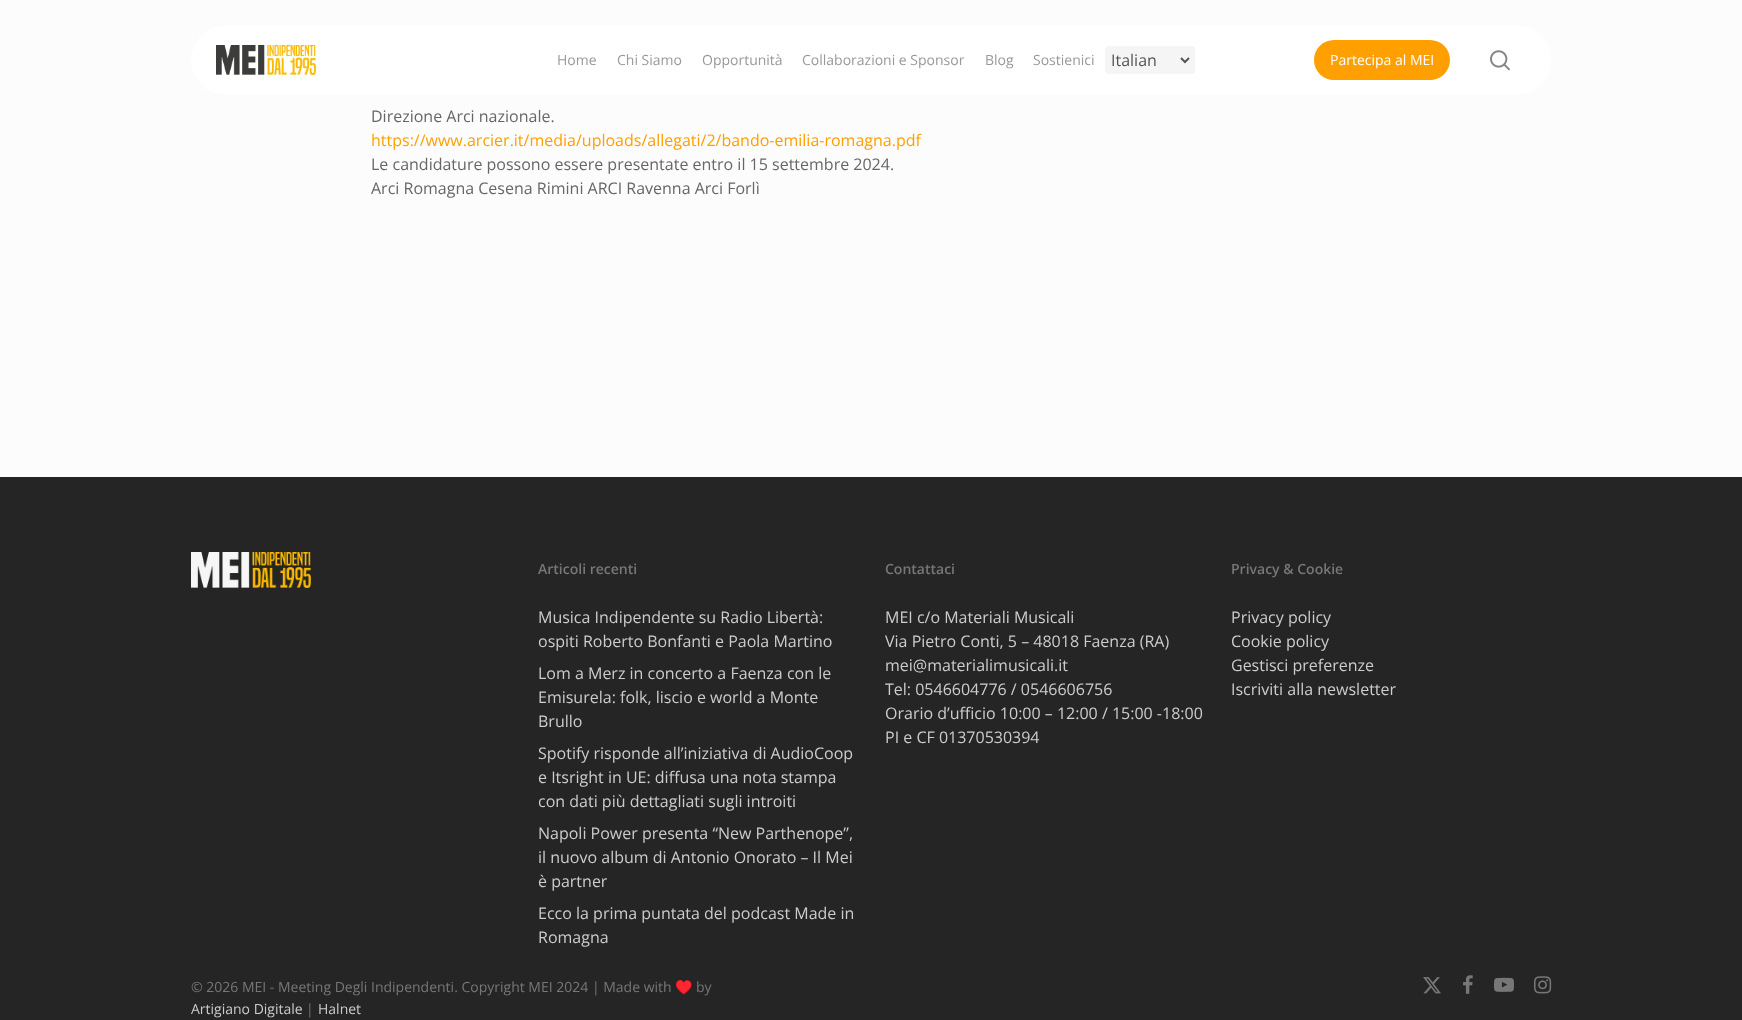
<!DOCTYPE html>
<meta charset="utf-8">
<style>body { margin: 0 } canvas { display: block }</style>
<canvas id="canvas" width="1742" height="1020"></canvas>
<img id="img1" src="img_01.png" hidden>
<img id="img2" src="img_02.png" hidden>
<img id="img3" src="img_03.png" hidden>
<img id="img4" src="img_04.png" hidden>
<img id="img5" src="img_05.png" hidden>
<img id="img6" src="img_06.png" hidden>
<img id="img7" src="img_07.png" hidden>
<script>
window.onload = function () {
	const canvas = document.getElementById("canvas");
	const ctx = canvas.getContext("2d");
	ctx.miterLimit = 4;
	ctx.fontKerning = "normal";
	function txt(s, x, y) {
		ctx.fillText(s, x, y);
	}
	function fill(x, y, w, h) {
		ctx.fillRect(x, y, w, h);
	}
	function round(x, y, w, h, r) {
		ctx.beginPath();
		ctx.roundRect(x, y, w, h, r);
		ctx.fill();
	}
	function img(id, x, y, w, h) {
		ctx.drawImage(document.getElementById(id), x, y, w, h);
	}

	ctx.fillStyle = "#FCFCFC";
	fill(0, 0, 1742, 1020);
	ctx.fillStyle = "rgba(255, 255, 255, 0.9)";
	round(191, 25, 1360, 70, 35);
	img("img1", 216, 45, 100, 30);
	ctx.fillStyle = "#F5F5F5";
	round(1105, 46, 90, 28, 4);
	ctx.beginPath();
	ctx.moveTo(1181, 58);
	ctx.lineTo(1185, 62);
	ctx.lineTo(1189, 58);
	ctx.strokeStyle = "#555555";
	ctx.lineWidth = 2;
	ctx.stroke();
	ctx.fillStyle = "#FFA000";
	round(1314, 40, 136, 40, 20);
	img("img2", 1490, 50, 20, 21);
	ctx.fillStyle = "#252525";
	fill(0, 477, 1742, 543);
	img("img3", 191, 552, 120, 36);
	img("img4", 1423, 977, 18, 17);
	img("img5", 1463, 975, 10, 19);
	img("img6", 1494, 977, 20, 15);
	img("img7", 1534, 976, 18, 18);
	ctx.font = "14px Open Sans";
	ctx.fillStyle = "#999999";
	txt("Home", 557, 65);
	txt("Chi Siamo", 617, 65);
	txt("Opportunità", 702, 65);
	txt("Collaborazioni e Sponsor", 802, 65);
	txt("Blog", 985, 65);
	txt("Sostienici", 1033, 65);
	ctx.font = "16px Open Sans";
	ctx.fillStyle = "#555555";
	txt("Italian", 1111, 66);
	ctx.font = "14px Open Sans";
	ctx.fillStyle = "#FFFFFF";
	txt("Partecipa al MEI", 1330, 65);
	ctx.font = "16px Open Sans";
	ctx.fillStyle = "#676767";
	txt("Direzione Arci nazionale.", 371, 122);
	ctx.fillStyle = "#FFA000";
	txt("https://www.arcier.it/media/uploads/allegati/2/bando-emilia-romagna.pdf", 371, 146);
	ctx.fillStyle = "#676767";
	txt("Le candidature possono essere presentate entro il 15 settembre 2024.", 371, 170);
	txt("Arci Romagna Cesena Rimini ARCI Ravenna Arci Forlì", 371, 194);
	ctx.font = "600 14px Open Sans";
	ctx.fillStyle = "#777777";
	txt("Articoli recenti", 538, 574);
	ctx.font = "16px Open Sans";
	ctx.fillStyle = "#CCCCCC";
	txt("Musica Indipendente su Radio Libertà:", 538, 623);
	txt("ospiti Roberto Bonfanti e Paola Martino", 538, 647);
	txt("Lom a Merz in concerto a Faenza con le", 538, 679);
	txt("Emisurela: folk, liscio e world a Monte", 538, 703);
	txt("Brullo", 538, 727);
	txt("Spotify risponde all’iniziativa di AudioCoop", 538, 759);
	txt("e Itsright in UE: diffusa una nota stampa", 538, 783);
	txt("con dati più dettagliati sugli introiti", 538, 807);
	txt("Napoli Power presenta “New Parthenope”,", 538, 839);
	txt("il nuovo album di Antonio Onorato – Il Mei", 538, 863);
	txt("è partner", 538, 887);
	txt("Ecco la prima puntata del podcast Made in", 538, 919);
	txt("Romagna", 538, 943);
	ctx.font = "600 14px Open Sans";
	ctx.fillStyle = "#777777";
	txt("Contattaci", 885, 574);
	ctx.font = "16px Open Sans";
	ctx.fillStyle = "#CCCCCC";
	txt("MEI c/o Materiali Musicali", 885, 623);
	txt("Via Pietro Conti, 5 – 48018 Faenza (RA)", 885, 647);
	txt("mei@materialimusicali.it", 885, 671);
	txt("Tel: 0546604776 / 0546606756", 885, 695);
	txt("Orario d’ufficio 10:00 – 12:00 / 15:00 -18:00", 885, 719);
	txt("PI e CF 01370530394", 885, 743);
	ctx.font = "600 14px Open Sans";
	ctx.fillStyle = "#777777";
	txt("Privacy & Cookie", 1231, 574);
	ctx.font = "16px Open Sans";
	ctx.fillStyle = "#CCCCCC";
	txt("Privacy policy", 1231, 623);
	txt("Cookie policy", 1231, 647);
	txt("Gestisci preferenze", 1231, 671);
	txt("Iscriviti alla newsletter", 1231, 695);
	ctx.font = "14px Open Sans";
	ctx.fillStyle = "#777777";
	txt("© 2026 MEI - Meeting Degli Indipendenti. Copyright MEI 2024 | Made with", 191, 992);
	ctx.font = "14px Noto Color Emoji";
	txt("♥️", 675, 992);
	ctx.font = "14px Open Sans";
	txt("by", 696, 992);
	ctx.fillStyle = "#CCCCCC";
	txt("Artigiano Digitale", 191, 1014);
	ctx.fillStyle = "#777777";
	txt("|", 306, 1014);
	ctx.fillStyle = "#CCCCCC";
	txt("Halnet", 318, 1014);
};
</script>
